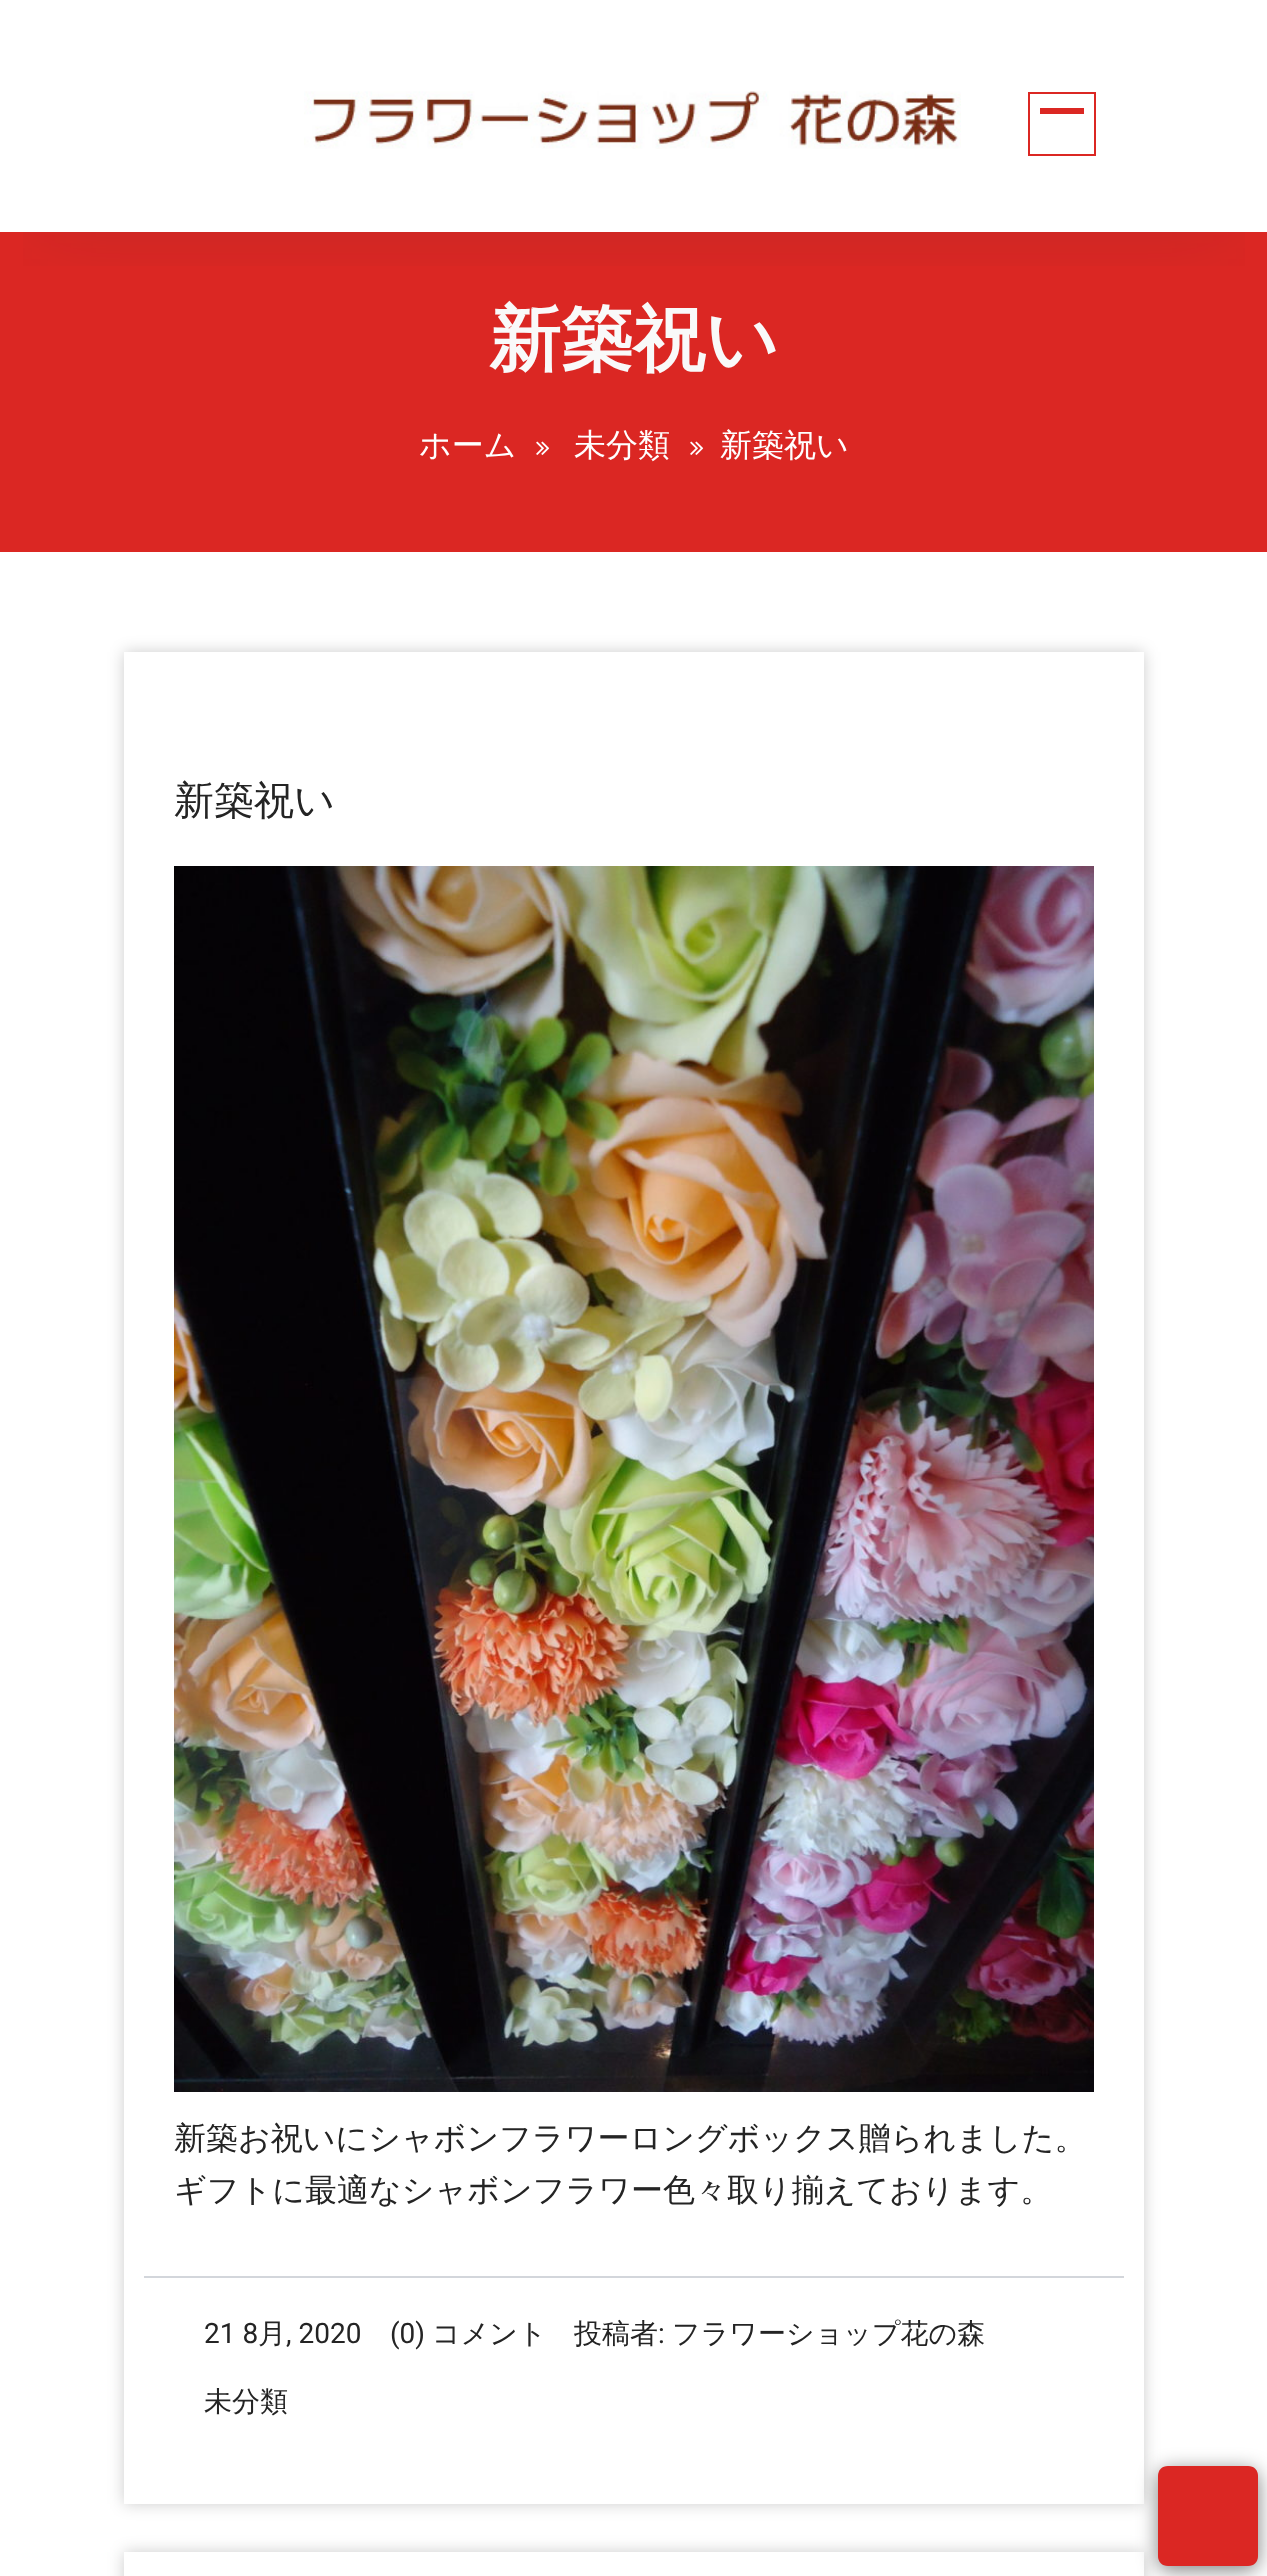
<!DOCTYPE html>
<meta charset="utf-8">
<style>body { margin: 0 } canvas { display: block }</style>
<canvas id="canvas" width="1267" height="2576"></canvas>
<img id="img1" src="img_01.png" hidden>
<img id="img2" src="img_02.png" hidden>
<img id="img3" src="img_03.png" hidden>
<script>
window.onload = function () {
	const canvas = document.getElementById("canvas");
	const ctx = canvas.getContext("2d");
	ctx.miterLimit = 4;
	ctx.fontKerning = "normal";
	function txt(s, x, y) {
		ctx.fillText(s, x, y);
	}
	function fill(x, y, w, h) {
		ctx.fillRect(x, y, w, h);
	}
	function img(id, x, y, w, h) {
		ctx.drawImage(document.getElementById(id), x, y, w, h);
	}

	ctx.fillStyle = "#FFFFFF";
	fill(0, 0, 1267, 2576);
	ctx.fillStyle = "#DB2723";
	fill(0, 232, 1267, 320);
	ctx.save();
	ctx.beginPath();
	ctx.rect(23, 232, 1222, 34);
	ctx.clip();
	ctx.fillStyle = "rgba(40, 44, 63, 0.15)";
	ctx.filter = "blur(40px)";
	ctx.beginPath();
	ctx.rect(40, 70, 1188, 152);
	ctx.fill();
	ctx.filter = "none";
	ctx.restore();
	img("img1", 304, 91, 657, 58);
	ctx.strokeStyle = "#DB2723";
	ctx.lineWidth = 2;
	ctx.strokeRect(1029, 93, 66, 62);
	fill(1040, 108, 44, 6);
	img("img2", 536, 441, 14, 14);
	img("img2", 690, 441, 14, 14);
	ctx.save();
	ctx.beginPath();
	ctx.moveTo(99, 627);
	ctx.lineTo(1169, 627);
	ctx.lineTo(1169, 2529);
	ctx.lineTo(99, 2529);
	ctx.closePath();
	ctx.moveTo(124, 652);
	ctx.lineTo(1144, 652);
	ctx.lineTo(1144, 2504);
	ctx.lineTo(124, 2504);
	ctx.closePath();
	ctx.clip("evenodd");
	ctx.fillStyle = "rgba(0, 0, 0, 0.2)";
	ctx.filter = "blur(8px)";
	ctx.beginPath();
	ctx.rect(124, 652, 1020, 1852);
	ctx.fill();
	ctx.filter = "none";
	ctx.restore();
	ctx.fillStyle = "#D3D6DB";
	fill(144, 2276, 980, 2);
	img("img3", 174, 866, 920, 1226);
	ctx.save();
	ctx.beginPath();
	ctx.moveTo(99, 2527);
	ctx.lineTo(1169, 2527);
	ctx.lineTo(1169, 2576);
	ctx.lineTo(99, 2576);
	ctx.closePath();
	ctx.moveTo(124, 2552);
	ctx.lineTo(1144, 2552);
	ctx.lineTo(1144, 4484);
	ctx.lineTo(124, 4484);
	ctx.closePath();
	ctx.clip("evenodd");
	ctx.fillStyle = "rgba(0, 0, 0, 0.2)";
	ctx.filter = "blur(8px)";
	ctx.beginPath();
	ctx.rect(124, 2552, 1020, 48);
	ctx.fill();
	ctx.filter = "none";
	ctx.restore();
	ctx.fillStyle = "rgba(0, 0, 0, 0.5)";
	ctx.filter = "blur(10px)";
	ctx.beginPath();
	ctx.roundRect(1158, 2470, 100, 100, 10);
	ctx.fill();
	ctx.filter = "none";
	ctx.fillStyle = "#DB2723";
	ctx.beginPath();
	ctx.moveTo(1248, 2566);
	ctx.lineTo(1168, 2566);
	ctx.bezierCurveTo(1162, 2566, 1158, 2562, 1158, 2556);
	ctx.lineTo(1158, 2476);
	ctx.bezierCurveTo(1158, 2470, 1162, 2466, 1168, 2466);
	ctx.lineTo(1248, 2466);
	ctx.bezierCurveTo(1254, 2466, 1258, 2470, 1258, 2476);
	ctx.lineTo(1258, 2556);
	ctx.bezierCurveTo(1258, 2562, 1254, 2566, 1248, 2566);
	ctx.closePath();
	ctx.fill();
	ctx.font = "bold 72px WenQuanYi Zen Hei";
	ctx.fillStyle = "#F9F9F9";
	txt("新築祝い", 489, 364);
	ctx.font = "500 32px WenQuanYi Zen Hei";
	ctx.fillStyle = "#FFFFFF";
	txt("ホーム", 419, 456);
	txt("未分類", 574, 456);
	txt("新築祝い", 720, 456);
	ctx.font = "500 40px WenQuanYi Zen Hei";
	ctx.fillStyle = "#242424";
	txt("新築祝い", 174, 814);
	ctx.font = "500 32px WenQuanYi Zen Hei";
	txt("新築お祝いにシャボンフラワーロングボックス贈られました。", 174, 2149);
	txt("ギフトに最適なシャボンフラワー色々取り揃えております。", 174, 2201);
	ctx.font = "28px Roboto";
	txt("21 8", 204, 2343);
	ctx.font = "500 28px WenQuanYi Zen Hei";
	txt("月", 258, 2343);
	ctx.font = "28px Roboto";
	txt(", 2020", 286, 2343);
	txt("(0)", 390, 2343);
	ctx.font = "500 28px WenQuanYi Zen Hei";
	txt("コメント", 432, 2343);
	txt("投稿者", 574, 2343);
	ctx.font = "28px Roboto";
	txt(":", 658, 2343);
	ctx.font = "500 28px WenQuanYi Zen Hei";
	txt("フラワーショップ花の森", 672, 2343);
	txt("未分類", 204, 2411);
};
</script>
